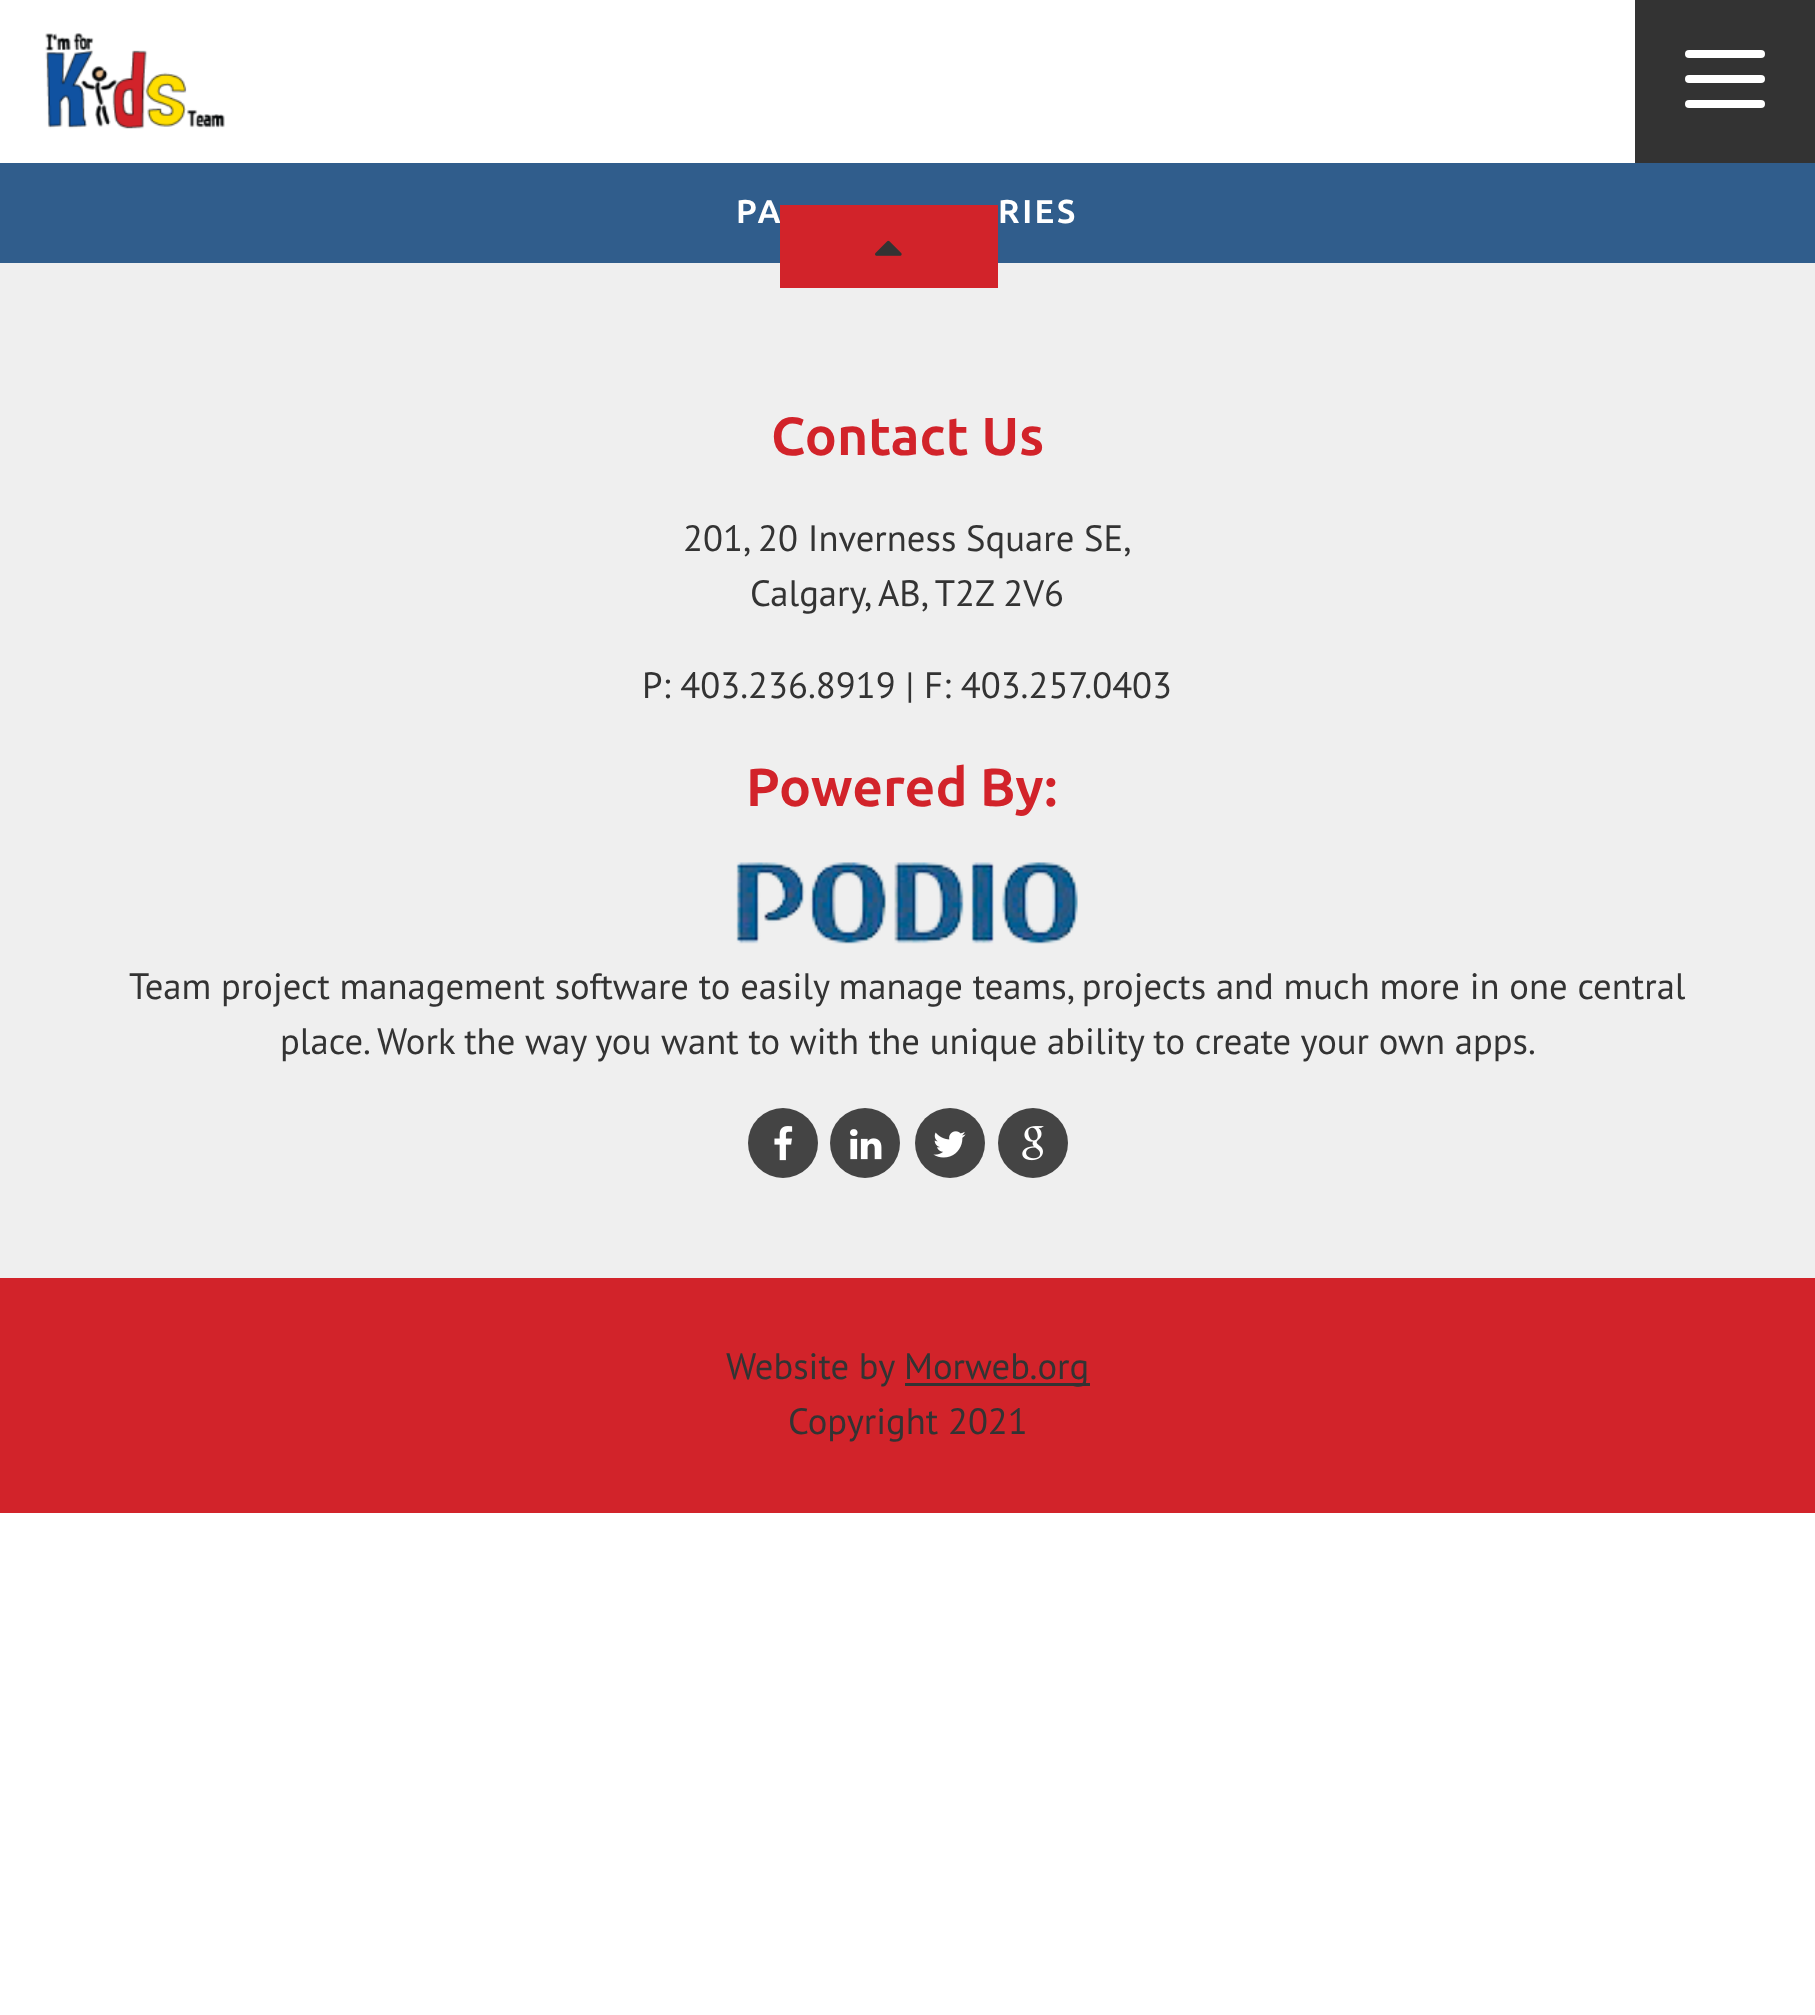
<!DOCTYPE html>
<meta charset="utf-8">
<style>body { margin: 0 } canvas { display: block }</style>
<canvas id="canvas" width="1815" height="2015"></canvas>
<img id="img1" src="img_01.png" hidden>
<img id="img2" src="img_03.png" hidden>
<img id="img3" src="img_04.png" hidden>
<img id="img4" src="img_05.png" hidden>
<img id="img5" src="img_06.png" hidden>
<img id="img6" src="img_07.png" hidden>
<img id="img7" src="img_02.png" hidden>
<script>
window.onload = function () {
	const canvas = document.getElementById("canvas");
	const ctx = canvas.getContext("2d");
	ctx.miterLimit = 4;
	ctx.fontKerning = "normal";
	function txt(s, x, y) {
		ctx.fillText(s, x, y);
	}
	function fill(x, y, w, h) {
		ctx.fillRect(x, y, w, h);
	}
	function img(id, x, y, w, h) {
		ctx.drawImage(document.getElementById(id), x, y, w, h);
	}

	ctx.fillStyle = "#FFFFFF";
	fill(0, 0, 1815, 2015);
	ctx.fillStyle = "#305D8C";
	fill(0, 163, 1815, 100);
	ctx.fillStyle = "#333333";
	fill(1635, 0, 180, 163);
	ctx.fillStyle = "#FFFFFF";
	ctx.beginPath();
	ctx.roundRect(1685, 50, 40, 8, [4, 0, 0, 4]);
	ctx.fill();
	ctx.beginPath();
	ctx.roundRect(1725, 50, 40, 8, [0, 4, 4, 0]);
	ctx.fill();
	ctx.beginPath();
	ctx.roundRect(1685, 75, 40, 8, [4, 0, 0, 4]);
	ctx.fill();
	ctx.beginPath();
	ctx.roundRect(1725, 75, 40, 8, [0, 4, 4, 0]);
	ctx.fill();
	ctx.beginPath();
	ctx.roundRect(1685, 100, 40, 8, [4, 0, 0, 4]);
	ctx.fill();
	ctx.beginPath();
	ctx.roundRect(1725, 100, 40, 8, [0, 4, 4, 0]);
	ctx.fill();
	img("img1", 45, 33, 180, 96);
	ctx.fillStyle = "#EFEFEF";
	fill(0, 263, 1815, 1015);
	img("img2", 736, 862, 342, 82);
	ctx.fillStyle = "#444444";
	ctx.beginPath();
	ctx.arc(783, 1143, 35, 0, Math.PI * 2);
	ctx.fill();
	img("img3", 774, 1126, 19, 35);
	ctx.beginPath();
	ctx.arc(865, 1143, 35, 0, Math.PI * 2);
	ctx.fill();
	img("img4", 850, 1129, 32, 31);
	ctx.beginPath();
	ctx.arc(950, 1143, 35, 0, Math.PI * 2);
	ctx.fill();
	img("img5", 933, 1131, 33, 27);
	ctx.beginPath();
	ctx.arc(1033, 1143, 35, 0, Math.PI * 2);
	ctx.fill();
	img("img6", 1022, 1126, 22, 35);
	ctx.fillStyle = "#D2232A";
	fill(0, 1278, 1815, 235);
	ctx.fillStyle = "#333333";
	fill(905, 1383, 185, 3);
	ctx.letterSpacing = "2.5px";
	ctx.font = "bold 33px Ubuntu";
	ctx.fillStyle = "#FFFFFF";
	txt("PA", 736, 223);
	txt("RIES", 998, 223);
	ctx.fillStyle = "#D2232A";
	fill(780, 205, 218, 83);
	img("img7", 875, 240, 27, 16);
	ctx.letterSpacing = "0px";
	ctx.font = "bold 53.5px Ubuntu";
	txt("Contact Us", 771, 455);
	ctx.font = "36.65px PT Sans";
	ctx.fillStyle = "#333333";
	txt("201, 20 Inverness Square SE,", 683, 551);
	txt("Calgary, AB, T2Z 2V6", 750, 606);
	txt("P: 403.236.8919 | F: 403.257.0403", 642, 698);
	ctx.font = "bold 53.5px Ubuntu";
	ctx.fillStyle = "#D2232A";
	txt("Powered By:", 746, 806);
	ctx.font = "36.65px PT Sans";
	ctx.fillStyle = "#333333";
	txt("Team project management software to easily manage teams, projects and much more in one central", 129, 999);
	txt("place. Work the way you want to with the unique ability to create your own apps.", 280, 1054);
	txt("Website by", 726, 1379);
	txt("Morweb.org", 904, 1379);
	txt("Copyright 2021", 788, 1434);
};
</script>
